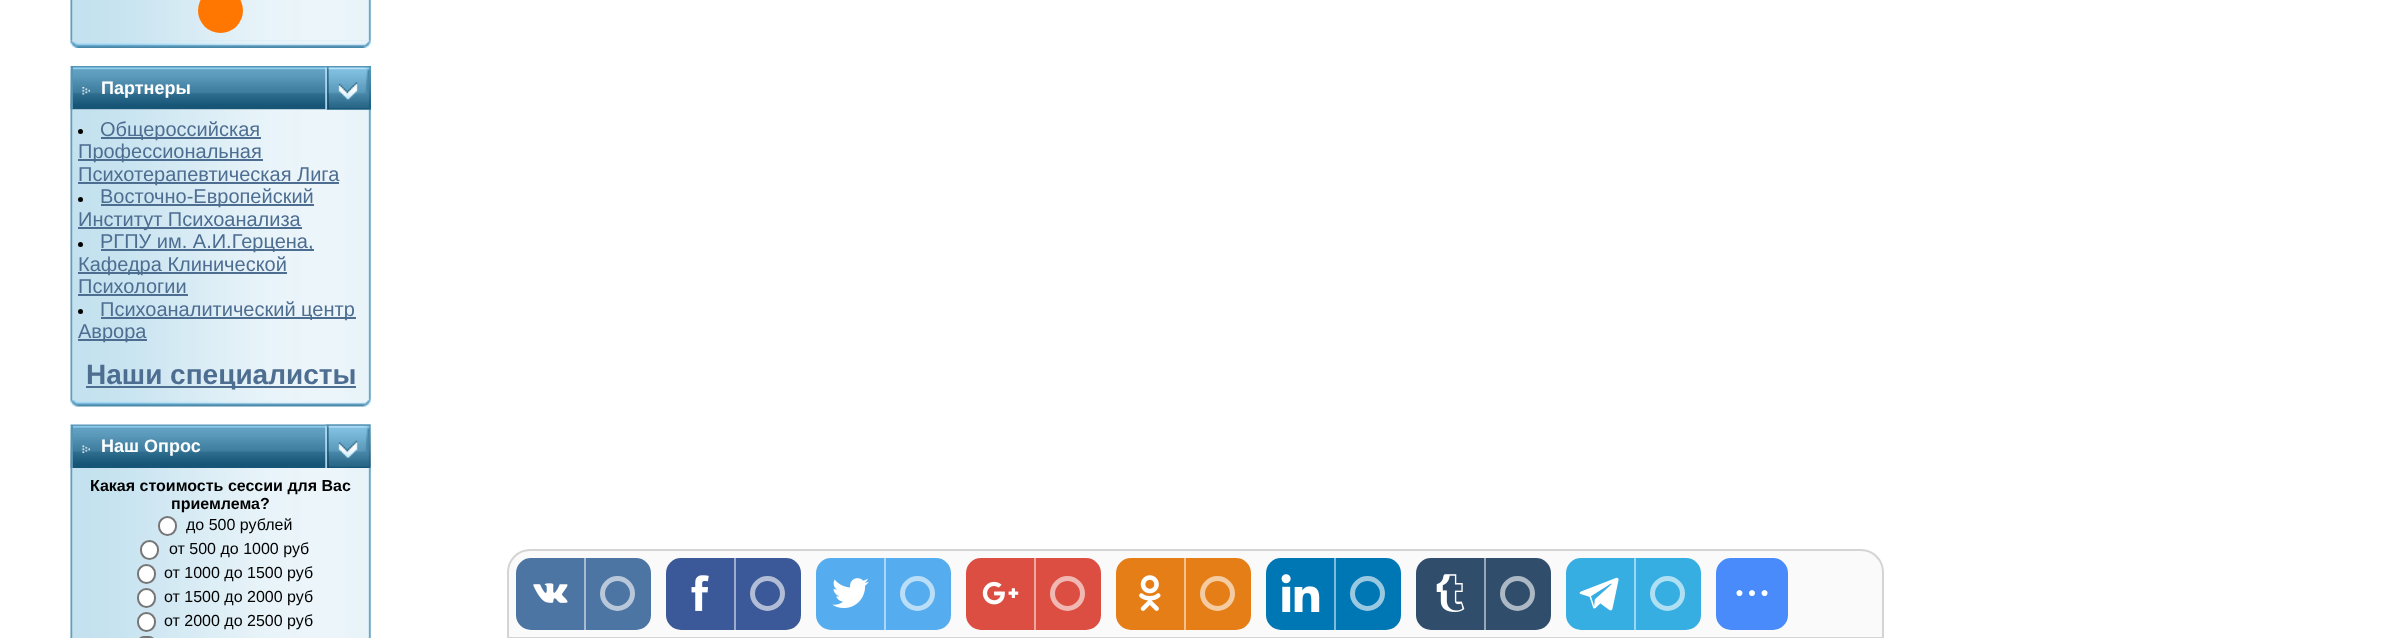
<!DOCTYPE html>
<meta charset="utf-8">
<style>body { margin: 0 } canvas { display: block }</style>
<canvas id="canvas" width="2390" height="638"></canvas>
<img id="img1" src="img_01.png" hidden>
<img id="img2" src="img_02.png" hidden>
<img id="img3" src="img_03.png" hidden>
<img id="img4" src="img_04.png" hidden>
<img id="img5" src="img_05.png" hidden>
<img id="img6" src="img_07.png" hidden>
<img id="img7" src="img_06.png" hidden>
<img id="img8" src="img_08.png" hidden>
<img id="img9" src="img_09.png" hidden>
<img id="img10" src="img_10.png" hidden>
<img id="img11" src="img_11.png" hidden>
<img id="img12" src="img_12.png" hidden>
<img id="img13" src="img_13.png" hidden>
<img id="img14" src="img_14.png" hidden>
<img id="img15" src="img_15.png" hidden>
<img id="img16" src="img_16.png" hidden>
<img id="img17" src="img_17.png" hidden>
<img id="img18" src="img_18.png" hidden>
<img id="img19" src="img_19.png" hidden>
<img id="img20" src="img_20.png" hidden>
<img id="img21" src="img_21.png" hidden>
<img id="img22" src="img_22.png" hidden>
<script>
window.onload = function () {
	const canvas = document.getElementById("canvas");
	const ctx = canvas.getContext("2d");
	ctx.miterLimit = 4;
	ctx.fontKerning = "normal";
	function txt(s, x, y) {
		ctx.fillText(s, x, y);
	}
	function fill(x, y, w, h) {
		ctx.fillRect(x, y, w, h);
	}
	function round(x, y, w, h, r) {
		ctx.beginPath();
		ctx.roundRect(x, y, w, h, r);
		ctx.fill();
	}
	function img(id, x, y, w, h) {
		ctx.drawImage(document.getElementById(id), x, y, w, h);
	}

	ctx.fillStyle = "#FFFFFF";
	fill(0, 0, 2390, 638);
	ctx.fillStyle = "#C3E1EF";
	fill(71, 0, 300, 41);
	img("img1", 70, 0, 301, 41);
	ctx.fillStyle = "#FF7700";
	ctx.beginPath();
	ctx.arc(220.5, 10.5, 22.5, 0, Math.PI * 2);
	ctx.fill();
	img("img2", 70, 40, 301, 8);
	img("img3", 70, 66, 256, 44);
	ctx.fillStyle = "#5694B5";
	fill(71, 66, 2, 44);
	img("img4", 82, 87, 8, 8);
	ctx.fillStyle = "#318EB7";
	fill(326, 66, 45, 44);
	img("img5", 325, 66, 46, 44);
	ctx.fillStyle = "#C3E1EF";
	fill(370, 110, 1, 289);
	img("img6", 70, 109, 301, 290);
	img("img7", 325, 66, 46, 44);
	ctx.fillStyle = "#000000";
	ctx.beginPath();
	ctx.arc(80.5, 131.5, 2.5, 0, Math.PI * 2);
	ctx.fill();
	ctx.fillStyle = "#4D6D91";
	fill(101, 137, 160, 2);
	fill(78, 159, 185, 2);
	fill(78, 182, 261, 2);
	ctx.fillStyle = "#000000";
	ctx.beginPath();
	ctx.arc(80.5, 199.5, 2.5, 0, Math.PI * 2);
	ctx.fill();
	ctx.fillStyle = "#4D6D91";
	fill(101, 204, 213, 2);
	fill(78, 227, 224, 2);
	ctx.fillStyle = "#000000";
	ctx.beginPath();
	ctx.arc(80.5, 244.5, 2.5, 0, Math.PI * 2);
	ctx.fill();
	ctx.fillStyle = "#4D6D91";
	fill(101, 249, 213, 2);
	fill(78, 272, 209, 2);
	fill(78, 294, 110, 2);
	ctx.fillStyle = "#000000";
	ctx.beginPath();
	ctx.arc(80.5, 311.5, 2.5, 0, Math.PI * 2);
	ctx.fill();
	ctx.fillStyle = "#4D6D91";
	fill(101, 317, 255, 2);
	fill(78, 339, 69, 2);
	fill(86, 386, 270, 2);
	img("img8", 70, 399, 301, 8);
	img("img9", 70, 424, 256, 44);
	ctx.fillStyle = "#5694B5";
	fill(71, 425, 2, 43);
	img("img10", 82, 445, 8, 8);
	img("img11", 325, 424, 46, 44);
	img("img12", 325, 424, 46, 44);
	ctx.fillStyle = "#C3E1EF";
	fill(370, 468, 1, 170);
	img("img13", 70, 468, 301, 170);
	ctx.fillStyle = "#FFFFFF";
	ctx.beginPath();
	ctx.roundRect(159, 517, 17, 18, 8.5);
	ctx.fill();
	ctx.strokeStyle = "#767676";
	ctx.lineWidth = 2;
	ctx.stroke();
	ctx.beginPath();
	ctx.roundRect(141, 541, 17, 18, 8.5);
	ctx.fill();
	ctx.stroke();
	ctx.beginPath();
	ctx.roundRect(138, 565, 17, 18, 8.5);
	ctx.fill();
	ctx.stroke();
	ctx.beginPath();
	ctx.roundRect(138, 589, 17, 18, 8.5);
	ctx.fill();
	ctx.stroke();
	ctx.beginPath();
	ctx.roundRect(138, 613, 17, 18, 8.5);
	ctx.fill();
	ctx.stroke();
	ctx.beginPath();
	ctx.roundRect(138, 637, 17, 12, 8.5);
	ctx.stroke();
	ctx.fillStyle = "#FAFAFA";
	ctx.beginPath();
	ctx.moveTo(530, 550);
	ctx.lineTo(1861, 550);
	ctx.bezierCurveTo(1873, 550, 1883, 560, 1883, 572);
	ctx.lineTo(1883, 638);
	ctx.lineTo(508, 638);
	ctx.lineTo(508, 572);
	ctx.bezierCurveTo(508, 560, 518, 550, 530, 550);
	ctx.closePath();
	ctx.fill();
	ctx.strokeStyle = "#D4D4D4";
	ctx.stroke();
	ctx.fillStyle = "#4D75A3";
	round(516, 558, 135, 72, 15);
	img("img14", 533, 583, 35, 20);
	ctx.fillStyle = "#A6BAD1";
	fill(584, 558, 2, 72);
	ctx.beginPath();
	ctx.arc(617.5, 593.5, 15, 0, Math.PI * 2);
	ctx.strokeStyle = "#B8C8DA";
	ctx.lineWidth = 5;
	ctx.stroke();
	ctx.fillStyle = "#3B5998";
	round(666, 558, 135, 72, 15);
	img("img15", 691, 575, 18, 36);
	ctx.fillStyle = "#9DACCC";
	fill(734, 558, 2, 72);
	ctx.beginPath();
	ctx.arc(767.5, 593.5, 15, 0, Math.PI * 2);
	ctx.strokeStyle = "#B1BDD6";
	ctx.stroke();
	ctx.fillStyle = "#55ACEE";
	round(816, 558, 135, 72, 15);
	img("img16", 832, 578, 37, 30);
	ctx.fillStyle = "#AAD6F7";
	fill(884, 558, 2, 72);
	ctx.beginPath();
	ctx.arc(917.5, 593.5, 15, 0, Math.PI * 2);
	ctx.strokeStyle = "#BBDEF8";
	ctx.stroke();
	ctx.fillStyle = "#DC4E41";
	round(966, 558, 135, 72, 15);
	img("img17", 982, 581, 37, 24);
	ctx.fillStyle = "#EEA7A0";
	fill(1034, 558, 2, 72);
	ctx.beginPath();
	ctx.arc(1067.5, 593.5, 15, 0, Math.PI * 2);
	ctx.strokeStyle = "#F1B8B3";
	ctx.stroke();
	ctx.fillStyle = "#E67E17";
	round(1116, 558, 135, 72, 15);
	img("img18", 1139, 575, 22, 36);
	ctx.fillStyle = "#F3BF8B";
	fill(1184, 558, 2, 72);
	ctx.beginPath();
	ctx.arc(1217.5, 593.5, 15, 0, Math.PI * 2);
	ctx.strokeStyle = "#F5CBA2";
	ctx.stroke();
	ctx.fillStyle = "#0077B5";
	round(1266, 558, 135, 72, 15);
	img("img19", 1281, 574, 39, 38);
	ctx.fillStyle = "#80BBDA";
	fill(1334, 558, 2, 72);
	ctx.beginPath();
	ctx.arc(1367.5, 593.5, 15, 0, Math.PI * 2);
	ctx.strokeStyle = "#99C9E1";
	ctx.stroke();
	ctx.fillStyle = "#304E6C";
	round(1416, 558, 135, 72, 15);
	img("img20", 1436, 574, 29, 38);
	ctx.fillStyle = "#98A7B6";
	fill(1484, 558, 2, 72);
	ctx.beginPath();
	ctx.arc(1517.5, 593.5, 15, 0, Math.PI * 2);
	ctx.strokeStyle = "#ACB8C4";
	ctx.stroke();
	ctx.fillStyle = "#37AEE2";
	round(1566, 558, 135, 72, 15);
	img("img21", 1579, 577, 40, 34);
	ctx.fillStyle = "#9BD7F1";
	fill(1634, 558, 2, 72);
	ctx.beginPath();
	ctx.arc(1667.5, 593.5, 15, 0, Math.PI * 2);
	ctx.strokeStyle = "#AFDFF3";
	ctx.stroke();
	ctx.fillStyle = "#498BFA";
	round(1716, 558, 72, 72, 15);
	img("img22", 1736, 590, 32, 7);
	ctx.font = "bold 18px Liberation Sans";
	ctx.fillStyle = "#FFFFFF";
	txt("Партнеры", 101, 94);
	ctx.font = "20px Liberation Sans";
	ctx.fillStyle = "#4D6D91";
	txt("Общероссийская", 100, 136);
	txt("Профессиональная", 78, 158);
	txt("Психотерапевтическая Лига", 78, 181);
	txt("Восточно-Европейский", 100, 203);
	txt("Институт Психоанализа", 78, 226);
	txt("РГПУ им. А.И.Герцена,", 100, 248);
	txt("Кафедра Клинической", 78, 271);
	txt("Психологии", 78, 293);
	txt("Психоаналитический центр", 100, 316);
	txt("Аврора", 78, 338);
	ctx.font = "bold 28px Liberation Sans";
	txt("Наши специалисты", 86, 384);
	ctx.font = "bold 18px Liberation Sans";
	ctx.fillStyle = "#FFFFFF";
	txt("Наш Опрос", 101, 452);
	ctx.font = "bold 16px Liberation Sans";
	ctx.fillStyle = "#000000";
	txt("Какая стоимость сессии для Вас", 90, 491);
	txt("приемлема?", 171, 509);
	ctx.font = "16px Liberation Sans";
	txt("до 500 рублей", 186, 530);
	txt("от 500 до 1000 руб", 169, 554);
	txt("от 1000 до 1500 руб", 164, 578);
	txt("от 1500 до 2000 руб", 164, 602);
	txt("от 2000 до 2500 руб", 164, 626);
};
</script>
